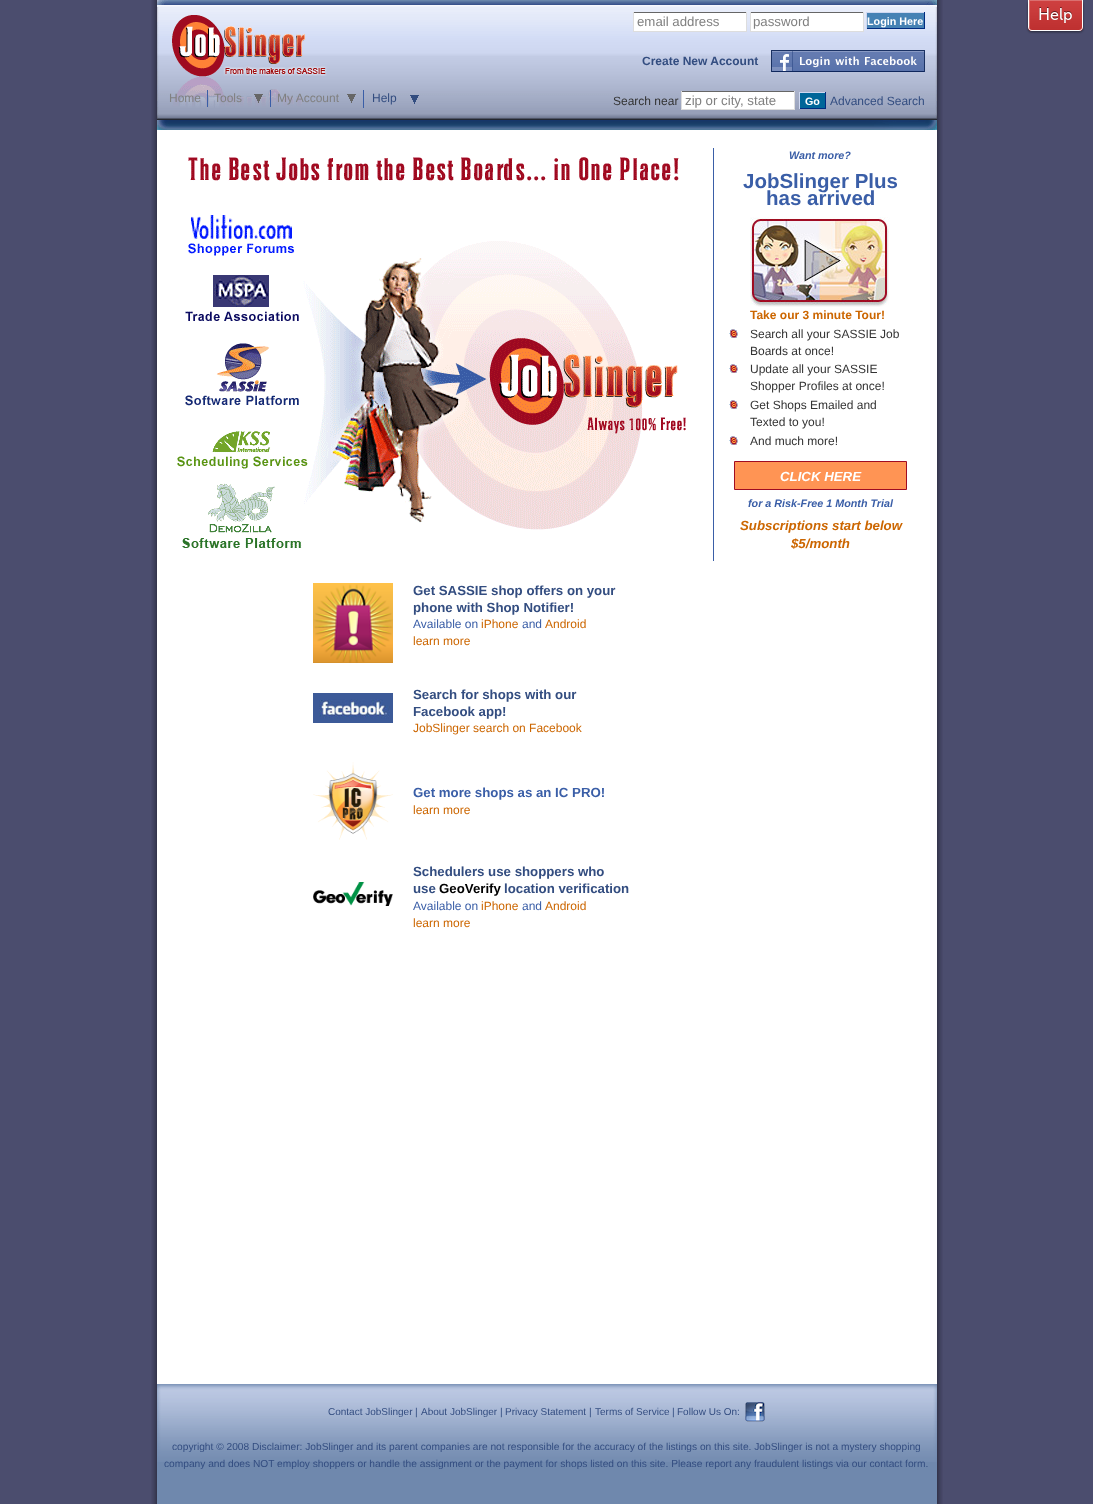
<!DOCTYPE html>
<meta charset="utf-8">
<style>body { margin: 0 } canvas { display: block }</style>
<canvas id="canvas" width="1093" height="1504"></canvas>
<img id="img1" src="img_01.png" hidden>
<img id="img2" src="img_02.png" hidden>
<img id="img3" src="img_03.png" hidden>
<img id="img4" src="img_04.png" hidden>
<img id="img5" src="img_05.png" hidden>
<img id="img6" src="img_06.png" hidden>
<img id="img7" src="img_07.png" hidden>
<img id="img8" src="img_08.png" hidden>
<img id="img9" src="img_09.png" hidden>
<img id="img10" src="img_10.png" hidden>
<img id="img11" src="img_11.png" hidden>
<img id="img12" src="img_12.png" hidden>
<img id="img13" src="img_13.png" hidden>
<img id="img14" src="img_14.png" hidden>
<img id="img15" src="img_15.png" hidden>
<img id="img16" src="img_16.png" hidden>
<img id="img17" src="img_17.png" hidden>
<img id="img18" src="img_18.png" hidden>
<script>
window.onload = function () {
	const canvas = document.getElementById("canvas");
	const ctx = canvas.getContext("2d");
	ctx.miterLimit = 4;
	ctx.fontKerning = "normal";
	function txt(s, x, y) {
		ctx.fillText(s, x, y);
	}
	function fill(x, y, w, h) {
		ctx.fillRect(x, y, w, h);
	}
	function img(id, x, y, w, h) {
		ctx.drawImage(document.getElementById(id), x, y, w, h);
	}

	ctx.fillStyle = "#4B4D6E";
	fill(0, 0, 1093, 1504);
	img("img1", 151, 0, 792, 1504);
	img("img2", 157, 0, 780, 120);
	ctx.fillStyle = "#FFFFFF";
	fill(634, 13, 112, 18);
	ctx.fillStyle = "#666666";
	fill(633, 12, 114, 1);
	ctx.fillStyle = "#DDDDDD";
	fill(746, 12, 1, 20);
	fill(633, 31, 114, 1);
	fill(633, 12, 1, 20);
	ctx.fillStyle = "#FFFFFF";
	fill(751, 13, 112, 18);
	ctx.fillStyle = "#666666";
	fill(750, 12, 114, 1);
	ctx.fillStyle = "#DDDDDD";
	fill(863, 12, 1, 20);
	fill(750, 31, 114, 1);
	fill(750, 12, 1, 20);
	ctx.fillStyle = "#4682B4";
	fill(867, 13, 57, 15);
	ctx.fillStyle = "#CFD8F1";
	fill(866, 12, 59, 1);
	ctx.fillStyle = "#002B80";
	fill(924, 12, 1, 17);
	fill(866, 28, 59, 1);
	ctx.fillStyle = "#CFD8F1";
	fill(866, 12, 1, 17);
	img("img3", 771, 50, 154, 22);
	ctx.fillStyle = "#3A5EA7";
	fill(207, 90, 1, 17);
	img("img4", 254, 94, 9, 9);
	fill(270, 90, 1, 17);
	img("img5", 347, 94, 9, 9);
	fill(363, 90, 1, 18);
	img("img6", 410, 95, 9, 9);
	ctx.fillStyle = "#FFFFFF";
	fill(682, 92, 112, 17);
	ctx.fillStyle = "#666666";
	fill(681, 91, 114, 1);
	ctx.fillStyle = "#DDDDDD";
	fill(794, 91, 1, 19);
	fill(681, 109, 114, 1);
	fill(681, 91, 1, 19);
	ctx.fillStyle = "#006699";
	fill(800, 93, 25, 15);
	ctx.fillStyle = "#CFD8F1";
	fill(799, 92, 27, 1);
	ctx.fillStyle = "#002B80";
	fill(825, 92, 1, 17);
	fill(799, 108, 27, 1);
	ctx.fillStyle = "#CFD8F1";
	fill(799, 92, 1, 17);
	img("img7", 157, 120, 780, 10);
	ctx.fillStyle = "#3A5EA7";
	fill(713, 148, 1, 413);
	img("img8", 750, 217, 140, 90);
	img("img9", 729, 329, 9, 9);
	img("img9", 729, 364, 9, 9);
	img("img9", 729, 400, 9, 9);
	img("img9", 729, 436, 9, 9);
	ctx.fillStyle = "#FF9454";
	ctx.beginPath();
	ctx.rect(734.5, 461.5, 172, 28);
	ctx.fill();
	ctx.strokeStyle = "#A00C22";
	ctx.stroke();
	img("img10", 176, 157, 510, 392);
	img("img11", 313, 583, 80, 80);
	img("img12", 313, 693, 80, 30);
	img("img13", 313, 762, 80, 78);
	img("img14", 313, 882, 80, 24);
	ctx.fillStyle = "rgba(0, 0, 0, 0.5)";
	ctx.filter = "blur(1px)";
	ctx.beginPath();
	ctx.roundRect(1028, 1, 55, 31, 4);
	ctx.fill();
	ctx.filter = "none";
	ctx.fillStyle = "#CC3333";
	ctx.beginPath();
	ctx.roundRect(1028, 0, 55, 31, [0, 0, 4, 4]);
	ctx.fill();
	img("img15", 1029, 0, 54, 31);
	ctx.fillStyle = "rgba(255, 255, 255, 0.25)";
	ctx.beginPath();
	ctx.moveTo(1030, 1);
	ctx.lineTo(1082, 1);
	ctx.lineTo(1082, 0);
	ctx.lineTo(1029, 0);
	ctx.bezierCurveTo(1029, 4, 1028, 28, 1030, 29);
	ctx.lineTo(1030, 28);
	ctx.closePath();
	ctx.fill();
	ctx.fillStyle = "#FFFFFF";
	ctx.beginPath();
	ctx.moveTo(1028, 0);
	ctx.lineTo(1083, 0);
	ctx.lineTo(1083, 27);
	ctx.bezierCurveTo(1083, 29, 1081, 31, 1079, 31);
	ctx.lineTo(1032, 31);
	ctx.bezierCurveTo(1030, 31, 1028, 29, 1028, 27);
	ctx.closePath();
	ctx.moveTo(1029, 0);
	ctx.lineTo(1082, 0);
	ctx.lineTo(1082, 27);
	ctx.bezierCurveTo(1082, 29, 1081, 30, 1079, 30);
	ctx.lineTo(1032, 30);
	ctx.bezierCurveTo(1030, 30, 1029, 29, 1029, 27);
	ctx.closePath();
	ctx.fill("evenodd");
	img("img16", 1039, 7, 33, 16);
	ctx.fillStyle = "#6F88AD";
	fill(157, 1462, 780, 42);
	img("img17", 157, 1384, 780, 78);
	img("img18", 745, 1402, 20, 20);
	ctx.font = "13.25px Liberation Sans";
	ctx.fillStyle = "#808080";
	txt("email address", 637, 26);
	txt("password", 753, 26);
	ctx.font = "bold 10.75px Liberation Sans";
	ctx.fillStyle = "#FFFFFF";
	txt("Login Here", 867, 25);
	ctx.font = "bold 12px Liberation Sans";
	ctx.fillStyle = "#334D80";
	txt("Create New Account", 642, 65);
	ctx.font = "12px Liberation Sans";
	ctx.fillStyle = "#808080";
	txt("Home", 169, 102);
	txt("Tools", 214, 102);
	txt("My Account", 277, 102);
	ctx.fillStyle = "#334D80";
	txt("Help", 372, 102);
	ctx.fillStyle = "#333333";
	txt("Search near", 613, 105);
	ctx.font = "13.25px Liberation Sans";
	ctx.fillStyle = "#808080";
	txt("zip or city, state", 685, 105);
	ctx.font = "bold 10.75px Liberation Sans";
	ctx.fillStyle = "#FFFFFF";
	txt("Go", 805, 105);
	ctx.font = "12px Liberation Sans";
	ctx.fillStyle = "#334D80";
	txt("Advanced Search", 830, 105);
	ctx.font = "italic bold 10.75px Liberation Sans";
	ctx.fillStyle = "#3A5EA7";
	txt("Want more?", 789, 159);
	ctx.font = "bold 20.5px Liberation Sans";
	txt("JobSlinger Plus", 743, 188);
	txt("has arrived", 766, 205);
	ctx.font = "bold 12px Liberation Sans";
	ctx.fillStyle = "#CC6600";
	txt("Take our 3 minute Tour!", 750, 319);
	ctx.font = "12px Liberation Sans";
	ctx.fillStyle = "#333333";
	txt("Search all your SASSIE Job", 750, 338);
	txt("Boards at once!", 750, 355);
	txt("Update all your SASSIE", 750, 373);
	txt("Shopper Profiles at once!", 750, 390);
	txt("Get Shops Emailed and", 750, 409);
	txt("Texted to you!", 750, 426);
	txt("And much more!", 750, 445);
	ctx.font = "italic bold 13.25px Liberation Sans";
	ctx.fillStyle = "#FFFFFF";
	txt("CLICK HERE", 780, 481);
	ctx.font = "italic bold 10.75px Liberation Sans";
	ctx.fillStyle = "#3A5EA7";
	txt("for a Risk-Free 1 Month Trial", 748, 507);
	ctx.font = "italic bold 13.25px Liberation Sans";
	ctx.fillStyle = "#CC6600";
	txt("Subscriptions start below", 740, 530);
	txt("$5/month", 791, 548);
	ctx.font = "bold 13.25px Liberation Sans";
	ctx.fillStyle = "#334D80";
	txt("Get SASSIE shop offers on your", 413, 595);
	txt("phone with Shop Notifier!", 413, 612);
	ctx.font = "12px Liberation Sans";
	ctx.fillStyle = "#3A5EA7";
	txt("Available on", 413, 628);
	ctx.fillStyle = "#CC6600";
	txt("iPhone", 481, 628);
	ctx.fillStyle = "#3A5EA7";
	txt("and", 522, 628);
	ctx.fillStyle = "#CC6600";
	txt("Android", 545, 628);
	txt("learn more", 413, 645);
	ctx.font = "bold 13.25px Liberation Sans";
	ctx.fillStyle = "#334D80";
	txt("Search for shops with our", 413, 699);
	txt("Facebook app!", 413, 716);
	ctx.font = "12px Liberation Sans";
	ctx.fillStyle = "#CC6600";
	txt("JobSlinger search on Facebook", 413, 732);
	ctx.font = "bold 13.25px Liberation Sans";
	ctx.fillStyle = "#3A5EA7";
	txt("Get more shops as an IC PRO!", 413, 797);
	ctx.font = "12px Liberation Sans";
	ctx.fillStyle = "#CC6600";
	txt("learn more", 413, 814);
	ctx.font = "bold 13.25px Liberation Sans";
	ctx.fillStyle = "#334D80";
	txt("Schedulers use shoppers who", 413, 876);
	txt("use", 413, 893);
	ctx.fillStyle = "#000000";
	txt("GeoVerify", 439, 893);
	ctx.fillStyle = "#334D80";
	txt("location verification", 504, 893);
	ctx.font = "12px Liberation Sans";
	ctx.fillStyle = "#3A5EA7";
	txt("Available on", 413, 910);
	ctx.fillStyle = "#CC6600";
	txt("iPhone", 481, 910);
	ctx.fillStyle = "#3A5EA7";
	txt("and", 522, 910);
	ctx.fillStyle = "#CC6600";
	txt("Android", 545, 910);
	txt("learn more", 413, 927);
	ctx.font = "10px Liberation Sans";
	ctx.fillStyle = "#334D80";
	txt("Contact JobSlinger", 328, 1415);
	ctx.font = "10.2px Liberation Sans";
	txt("|", 415, 1415);
	ctx.font = "10px Liberation Sans";
	txt("About JobSlinger", 421, 1415);
	ctx.font = "10.2px Liberation Sans";
	txt("|", 500, 1415);
	ctx.font = "10px Liberation Sans";
	txt("Privacy Statement", 505, 1415);
	ctx.font = "10.2px Liberation Sans";
	txt("|", 589, 1415);
	ctx.font = "10px Liberation Sans";
	txt("Terms of Service", 595, 1415);
	ctx.font = "10.2px Liberation Sans";
	txt("|", 672, 1415);
	ctx.font = "10px Liberation Sans";
	txt("Follow Us On:", 677, 1415);
	ctx.font = "10.2px Liberation Sans";
	txt("copyright © 2008 Disclaimer: JobSlinger and its parent companies are not responsible for the accuracy of the listings on this site. JobSlinger is not a mystery shopping", 172, 1450);
	txt("company and does NOT employ shoppers or handle the assignment or the payment for shops listed on this site. Please report any fraudulent listings via our contact form.", 164, 1467);
};
</script>
